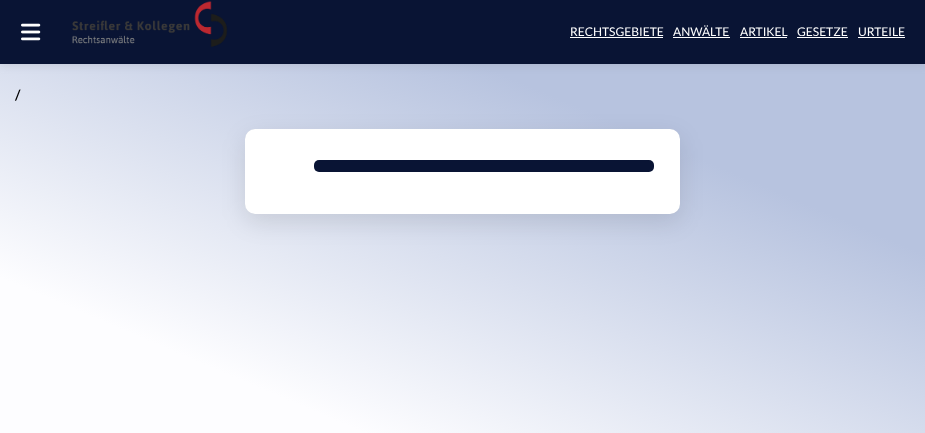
<!DOCTYPE html>
<meta charset="utf-8">
<style>body { margin: 0 } canvas { display: block }</style>
<canvas id="canvas" width="925" height="433"></canvas>
<img id="img1" src="img_01.png" hidden>
<img id="img2" src="img_02.png" hidden>
<script>
window.onload = function () {
	const canvas = document.getElementById("canvas");
	const ctx = canvas.getContext("2d");
	ctx.miterLimit = 4;
	ctx.fontKerning = "normal";
	function txt(s, x, y) {
		ctx.fillText(s, x, y);
	}
	function fill(x, y, w, h) {
		ctx.fillRect(x, y, w, h);
	}
	function round(x, y, w, h, r) {
		ctx.beginPath();
		ctx.roundRect(x, y, w, h, r);
		ctx.fill();
	}
	function img(id, x, y, w, h) {
		ctx.drawImage(document.getElementById(id), x, y, w, h);
	}
	let gradient;

	ctx.fillStyle = "#FFFFFF";
	fill(0, 0, 925, 433);
	gradient = ctx.createLinearGradient(626, -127, 299, 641);
	gradient.addColorStop(0.28, "#B7C3DF");
	gradient.addColorStop(0.74, "#FDFDFF");
	ctx.fillStyle = gradient;
	fill(0, 64, 925, 369);
	ctx.fillStyle = "rgba(122, 122, 122, 0.2)";
	ctx.filter = "blur(4px)";
	ctx.beginPath();
	ctx.rect(0, 0, 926, 65);
	ctx.fill();
	ctx.filter = "none";
	ctx.fillStyle = "#091434";
	fill(0, 0, 925, 64);
	img("img1", 21, 23, 20, 18);
	img("img2", 72, 1, 156, 46);
	ctx.fillStyle = "#FFFFFF";
	fill(570, 37, 93, 1);
	fill(673, 37, 57, 1);
	fill(740, 37, 47, 1);
	fill(797, 37, 51, 1);
	fill(858, 37, 47, 1);
	ctx.fillStyle = "rgba(0, 0, 0, 0.08)";
	ctx.filter = "blur(0.5px)";
	ctx.beginPath();
	ctx.roundRect(245, 129, 435, 85, 10);
	ctx.fill();
	ctx.filter = "none";
	ctx.fillStyle = "rgba(0, 0, 0, 0.1)";
	ctx.filter = "blur(12px)";
	ctx.beginPath();
	ctx.roundRect(245, 137, 435, 85, 10);
	ctx.fill();
	ctx.filter = "none";
	ctx.fillStyle = "#FFFFFF";
	round(245, 129, 435, 85, 10);
	ctx.fillStyle = "#091434";
	round(314, 160, 340, 12, 5);
	ctx.font = "12px Lato";
	ctx.fillStyle = "#FFFFFF";
	txt("RECHTSGEBIETE", 570, 36);
	txt("ANWÄLTE", 673, 36);
	txt("ARTIKEL", 740, 36);
	txt("GESETZE", 797, 36);
	txt("URTEILE", 858, 36);
	ctx.font = "bold 14px Lato";
	ctx.fillStyle = "#000000";
	txt("/", 15, 100);
};
</script>
